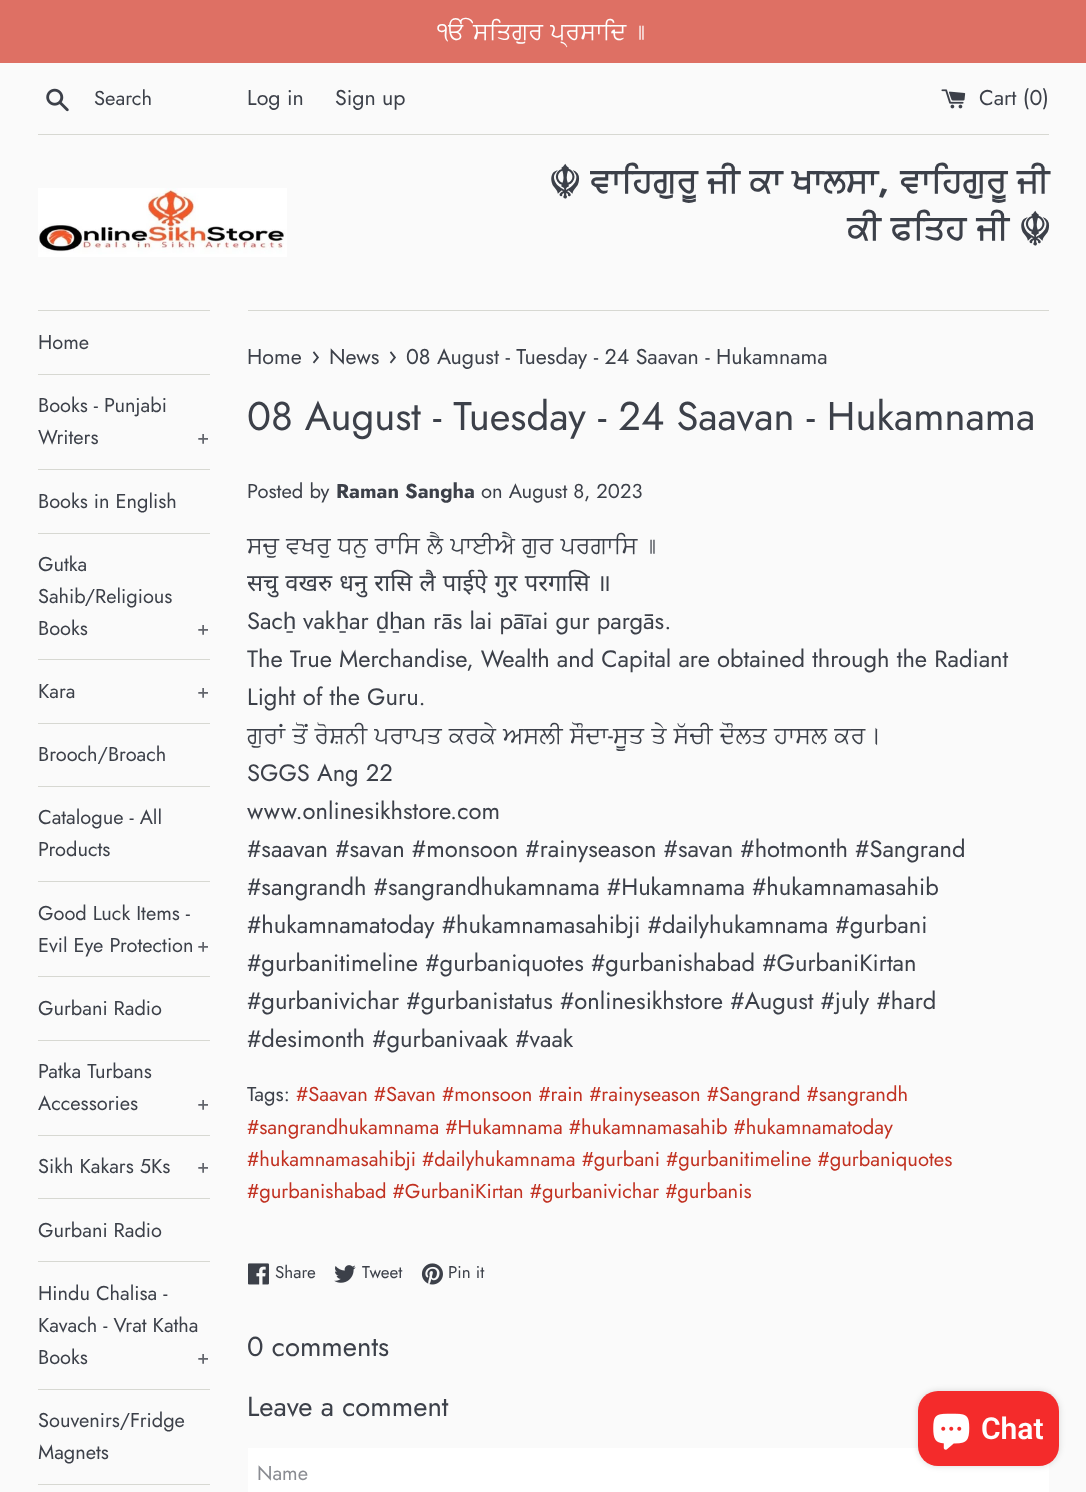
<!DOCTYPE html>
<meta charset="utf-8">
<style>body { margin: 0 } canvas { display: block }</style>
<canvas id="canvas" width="1086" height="1492"></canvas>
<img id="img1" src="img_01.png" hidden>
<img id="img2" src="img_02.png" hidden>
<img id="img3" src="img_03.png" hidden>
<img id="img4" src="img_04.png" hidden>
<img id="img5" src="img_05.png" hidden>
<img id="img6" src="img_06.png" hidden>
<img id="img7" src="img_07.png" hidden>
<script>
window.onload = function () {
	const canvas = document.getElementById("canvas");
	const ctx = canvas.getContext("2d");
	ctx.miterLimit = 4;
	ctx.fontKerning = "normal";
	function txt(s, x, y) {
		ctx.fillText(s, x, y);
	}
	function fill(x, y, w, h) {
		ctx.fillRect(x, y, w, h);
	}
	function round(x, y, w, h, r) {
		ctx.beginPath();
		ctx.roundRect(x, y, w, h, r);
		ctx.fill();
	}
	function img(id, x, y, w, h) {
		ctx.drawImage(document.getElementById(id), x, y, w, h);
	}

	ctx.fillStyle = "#FAFAFA";
	fill(0, 0, 1086, 1492);
	ctx.fillStyle = "#DE7064";
	fill(0, 0, 1086, 63);
	img("img1", 46, 88, 23, 24);
	img("img2", 941, 89, 25, 20);
	ctx.fillStyle = "#D7D8D2";
	fill(38, 134, 1011, 1);
	img("img3", 38, 188, 249, 69);
	fill(38, 310, 172, 1);
	fill(38, 374, 172, 1);
	fill(38, 469, 172, 1);
	fill(38, 533, 172, 1);
	fill(38, 659, 172, 1);
	fill(38, 723, 172, 1);
	fill(38, 786, 172, 1);
	fill(38, 881, 172, 1);
	fill(38, 976, 172, 1);
	fill(38, 1040, 172, 1);
	fill(38, 1135, 172, 1);
	fill(38, 1198, 172, 1);
	fill(38, 1261, 172, 1);
	fill(38, 1389, 172, 1);
	fill(38, 1484, 172, 1);
	fill(248, 310, 801, 1);
	img("img4", 248, 1263, 21, 22);
	img("img5", 334, 1265, 22, 18);
	img("img6", 421, 1263, 22, 22);
	ctx.fillStyle = "#FFFFFF";
	fill(248, 1448, 801, 44);
	ctx.fillStyle = "rgba(0, 0, 0, 0.15)";
	ctx.filter = "blur(3px)";
	ctx.beginPath();
	ctx.roundRect(918, 1391, 141, 75, 20);
	ctx.fill();
	ctx.filter = "none";
	ctx.fillStyle = "#F42B2B";
	round(918, 1391, 141, 75, 20);
	img("img7", 933, 1413, 37, 37);
	ctx.wordSpacing = "1.25px";
	ctx.font = "23.75px FreeSans";
	ctx.fillStyle = "#FEFEFE";
	txt("ੴ ਸਤਿਗੁਰ ਪ੍ਰਸਾਦਿ ॥", 437, 39);
	ctx.wordSpacing = "0px";
	ctx.font = "20.2px Jost";
	ctx.fillStyle = "#3C4049";
	txt("Search", 94, 105);
	ctx.font = "21.4px Jost";
	txt("Log in", 247, 105);
	txt("Sign up", 335, 105);
	txt("Cart (0)", 979, 105);
	ctx.wordSpacing = "1.5px";
	ctx.font = "bold 33.75px FreeSans";
	txt("☬ ਵਾਹਿਗੁਰੂ ਜੀ ਕਾ ਖਾਲਸਾ", 549, 192);
	ctx.wordSpacing = "0px";
	ctx.font = "bold 33.75px Jost";
	txt(",", 878, 192);
	ctx.wordSpacing = "1.5px";
	ctx.font = "bold 33.75px FreeSans";
	txt("ਵਾਹਿਗੁਰੂ ਜੀ", 900, 192);
	ctx.wordSpacing = "2px";
	txt("ਕੀ ਫਤਿਹ ਜੀ ☬", 847, 239);
	ctx.wordSpacing = "0px";
	ctx.font = "20px Jost";
	txt("Home", 38, 349);
	txt("Books - Punjabi", 38, 412);
	txt("Writers", 38, 444);
	ctx.fillStyle = "#62656C";
	txt("+", 197, 444);
	ctx.fillStyle = "#3C4049";
	txt("Books in English", 38, 508);
	txt("Gutka", 38, 571);
	txt("Sahib/Religious", 38, 603);
	txt("Books", 38, 635);
	ctx.fillStyle = "#62656C";
	txt("+", 197, 635);
	ctx.fillStyle = "#3C4049";
	txt("Kara", 38, 698);
	ctx.fillStyle = "#62656C";
	txt("+", 197, 698);
	ctx.fillStyle = "#3C4049";
	txt("Brooch/Broach", 38, 761);
	txt("Catalogue - All", 38, 824);
	txt("Products", 38, 856);
	txt("Good Luck Items -", 38, 920);
	txt("Evil Eye Protection", 38, 952);
	ctx.fillStyle = "#62656C";
	txt("+", 197, 952);
	ctx.fillStyle = "#3C4049";
	txt("Gurbani Radio", 38, 1015);
	txt("Patka Turbans", 38, 1078);
	txt("Accessories", 38, 1110);
	ctx.fillStyle = "#62656C";
	txt("+", 197, 1110);
	ctx.fillStyle = "#3C4049";
	txt("Sikh Kakars 5Ks", 38, 1173);
	ctx.fillStyle = "#62656C";
	txt("+", 197, 1173);
	ctx.fillStyle = "#3C4049";
	txt("Gurbani Radio", 38, 1237);
	txt("Hindu Chalisa -", 38, 1300);
	txt("Kavach - Vrat Katha", 38, 1332);
	txt("Books", 38, 1364);
	ctx.fillStyle = "#62656C";
	txt("+", 197, 1364);
	ctx.fillStyle = "#3C4049";
	txt("Souvenirs/Fridge", 38, 1427);
	txt("Magnets", 38, 1459);
	ctx.font = "21.4px Jost";
	txt("Home", 247, 364);
	ctx.font = "26px Jost";
	txt("›", 311, 364);
	ctx.font = "21.4px Jost";
	txt("News", 329, 364);
	ctx.font = "26px Jost";
	txt("›", 388, 364);
	ctx.font = "21.4px Jost";
	txt("08 August - Tuesday - 24 Saavan - Hukamnama", 406, 364);
	ctx.font = "40px Jost";
	txt("08 August - Tuesday - 24 Saavan - Hukamnama", 247, 430);
	ctx.font = "20.2px Jost";
	txt("Posted by", 247, 498);
	ctx.font = "bold 20.2px Jost";
	txt("Raman Sangha", 336, 498);
	ctx.font = "20.2px Jost";
	txt("on August 8, 2023", 481, 498);
	ctx.wordSpacing = "1.25px";
	ctx.font = "23.75px FreeSans";
	txt("ਸਚੁ ਵਖਰੁ ਧਨੁ ਰਾਸਿ ਲੈ ਪਾਈਐ ਗੁਰ ਪਰਗਾਸਿ ॥", 247, 553);
	ctx.wordSpacing = "1px";
	ctx.font = "23.75px Noto Sans";
	txt("सचु वखरु धनु रासि लै पाईऐ गुर परगासि ॥", 247, 591);
	ctx.wordSpacing = "0px";
	ctx.font = "23.75px Jost";
	txt("Sac", 247, 629);
	ctx.font = "23.75px Liberation Sans";
	txt("ẖ", 283, 629);
	ctx.font = "23.75px Jost";
	txt("vak", 303, 629);
	ctx.font = "23.75px Liberation Sans";
	txt("ẖ", 336, 629);
	ctx.font = "23.75px Jost";
	txt("ar", 349, 629);
	ctx.font = "23.75px Liberation Sans";
	txt("ḏẖ", 376, 629);
	ctx.font = "23.75px Jost";
	txt("an rās lai pāīai gur pargās.", 402, 629);
	txt("The True Merchandise, Wealth and Capital are obtained through the Radiant", 247, 667);
	txt("Light of the Guru.", 247, 705);
	ctx.wordSpacing = "1.25px";
	ctx.font = "23.75px FreeSans";
	txt("ਗੁਰਾਂ ਤੋਂ ਰੋਸ਼ਨੀ ਪਰਾਪਤ ਕਰਕੇ ਅਸਲੀ ਸੌਦਾ", 247, 743);
	ctx.wordSpacing = "0px";
	ctx.font = "23.75px Jost";
	txt("-", 608, 743);
	ctx.wordSpacing = "1.25px";
	ctx.font = "23.75px FreeSans";
	txt("ਸੂਤ ਤੇ ਸੱਚੀ ਦੌਲਤ ਹਾਸਲ ਕਰ।", 613, 743);
	ctx.wordSpacing = "0px";
	ctx.font = "23.75px Jost";
	txt("SGGS Ang 22", 247, 781);
	txt("www.onlinesikhstore.com", 247, 819);
	txt("#saavan #savan #monsoon #rainyseason #savan #hotmonth #Sangrand", 247, 857);
	txt("#sangrandh #sangrandhukamnama #Hukamnama #hukamnamasahib", 247, 895);
	txt("#hukamnamatoday #hukamnamasahibji #dailyhukamnama #gurbani", 247, 933);
	txt("#gurbanitimeline #gurbaniquotes #gurbanishabad #GurbaniKirtan", 247, 971);
	txt("#gurbanivichar #gurbanistatus #onlinesikhstore #August #july #hard", 247, 1009);
	txt("#desimonth #gurbanivaak #vaak", 247, 1047);
	ctx.font = "20.2px Jost";
	txt("Tags:", 247, 1101);
	ctx.fillStyle = "#C13121";
	txt("#Saavan #Savan #monsoon #rain #rainyseason #Sangrand #sangrandh", 296, 1101);
	txt("#sangrandhukamnama #Hukamnama #hukamnamasahib #hukamnamatoday", 247, 1134);
	txt("#hukamnamasahibji #dailyhukamnama #gurbani #gurbanitimeline #gurbaniquotes", 247, 1166);
	txt("#gurbanishabad #GurbaniKirtan #gurbanivichar #gurbanis", 247, 1198);
	ctx.font = "17px Jost";
	ctx.fillStyle = "#3C4049";
	txt("Share", 275, 1278);
	txt("Tweet", 362, 1278);
	txt("Pin it", 448, 1278);
	ctx.font = "27.5px Jost";
	txt("0 comments", 247, 1356);
	txt("Leave a comment", 247, 1416);
	ctx.font = "20px Jost";
	ctx.fillStyle = "#8A8C92";
	txt("Name", 257, 1480);
	ctx.font = "600 30px Roboto";
	ctx.fillStyle = "#FEFEFE";
	txt("Chat", 981, 1439);
};
</script>
